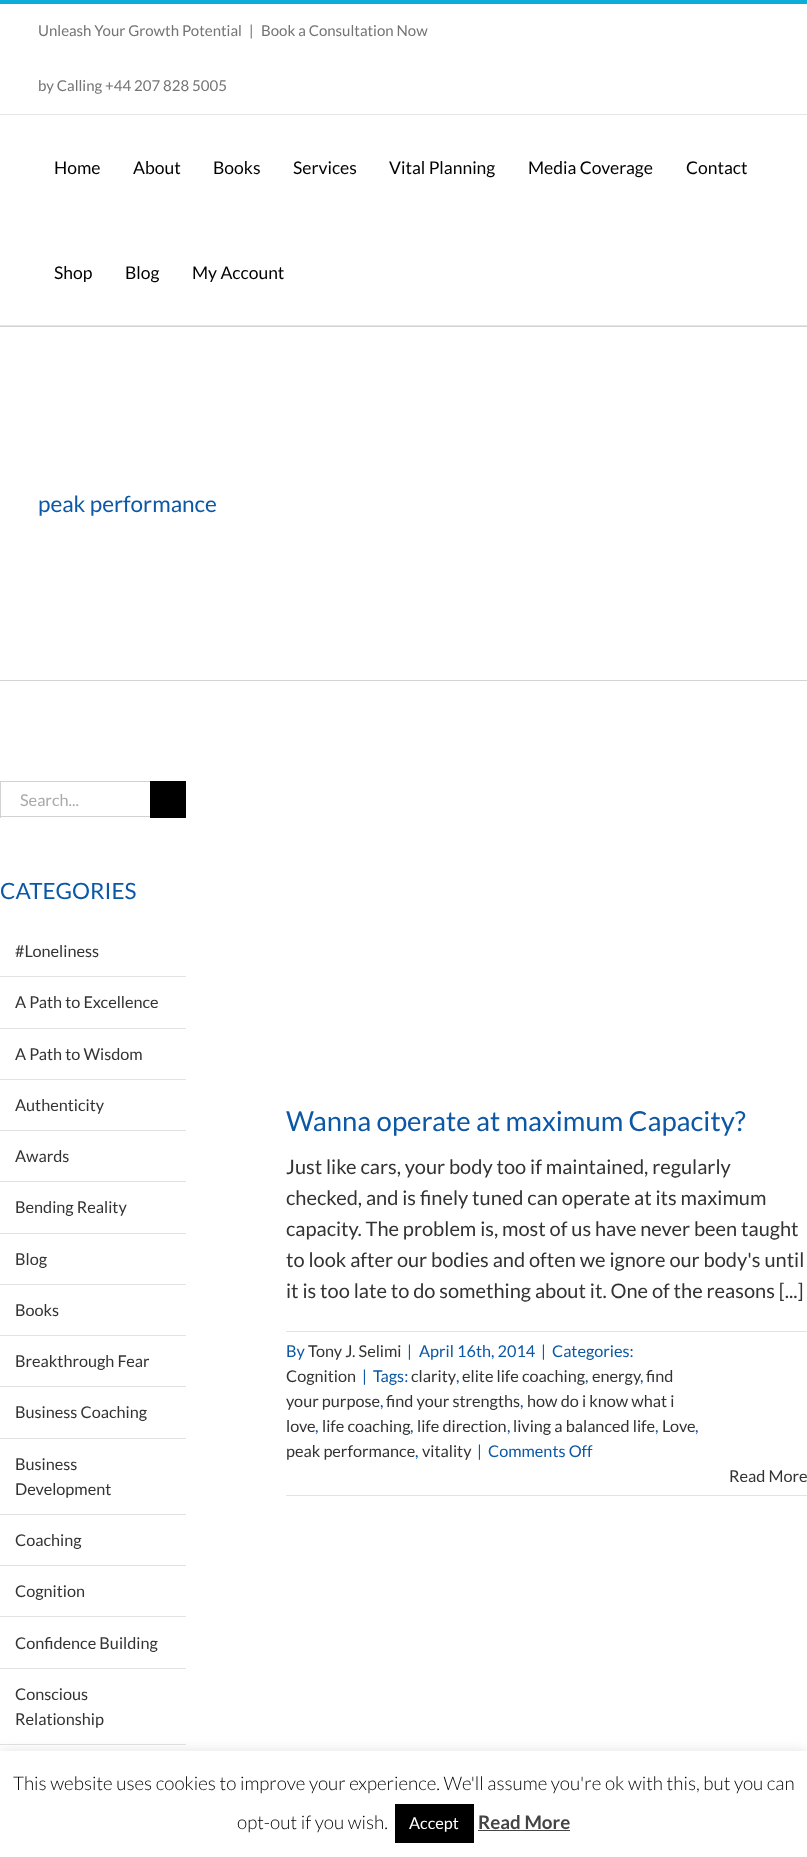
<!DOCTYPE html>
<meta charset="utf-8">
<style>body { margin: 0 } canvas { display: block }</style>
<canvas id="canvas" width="807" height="1857"></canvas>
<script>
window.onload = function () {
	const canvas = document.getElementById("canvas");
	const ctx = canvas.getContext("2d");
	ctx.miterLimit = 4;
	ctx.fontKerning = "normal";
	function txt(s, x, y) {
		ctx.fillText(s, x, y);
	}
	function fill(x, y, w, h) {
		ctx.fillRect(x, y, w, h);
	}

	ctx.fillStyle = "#FFFFFF";
	fill(0, 0, 807, 1857);
	ctx.fillStyle = "#0DADD7";
	fill(0, 0, 807, 4);
	ctx.fillStyle = "#E5E5E5";
	fill(0, 114, 807, 1);
	fill(0, 325, 807, 1);
	ctx.fillStyle = "#D2D3D4";
	fill(0, 326, 807, 1);
	fill(0, 680, 807, 1);
	ctx.fillStyle = "#D2D2D2";
	fill(0, 781, 150, 1);
	fill(0, 816, 150, 1);
	fill(0, 781, 1, 37);
	ctx.fillStyle = "#000000";
	fill(150, 781, 36, 37);
	ctx.fillStyle = "#E2E2E2";
	fill(0, 976, 186, 1);
	fill(0, 1028, 186, 1);
	fill(0, 1079, 186, 1);
	fill(0, 1130, 186, 1);
	fill(0, 1181, 186, 1);
	fill(0, 1233, 186, 1);
	fill(0, 1284, 186, 1);
	fill(0, 1335, 186, 1);
	fill(0, 1386, 186, 1);
	fill(0, 1438, 186, 1);
	fill(0, 1514, 186, 1);
	fill(0, 1565, 186, 1);
	fill(0, 1616, 186, 1);
	fill(0, 1668, 186, 1);
	fill(0, 1744, 186, 1);
	fill(286, 1331, 521, 1);
	fill(286, 1495, 521, 1);
	ctx.fillStyle = "rgba(172, 171, 171, 0.3)";
	ctx.filter = "blur(6px)";
	ctx.beginPath();
	ctx.rect(0, 1750, 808, 106);
	ctx.fill();
	ctx.filter = "none";
	ctx.fillStyle = "#FFFFFF";
	fill(0, 1751, 807, 106);
	ctx.fillStyle = "#000000";
	fill(395, 1804, 79, 39);
	ctx.fillStyle = "#444444";
	fill(478, 1830, 92, 1);
	ctx.font = "15px Lato";
	ctx.fillStyle = "#747474";
	txt("Unleash Your Growth Potential", 38, 36);
	txt("|", 249, 36);
	txt("Book a Consultation Now", 261, 36);
	txt("by Calling +44 207 828 5005", 38, 91);
	ctx.font = "17.5px Lato";
	ctx.fillStyle = "#000000";
	txt("Home", 54, 174);
	txt("About", 133, 174);
	txt("Books", 213, 174);
	txt("Services", 293, 174);
	txt("Vital Planning", 389, 174);
	txt("Media Coverage", 528, 174);
	txt("Contact", 686, 174);
	txt("Shop", 54, 279);
	txt("Blog", 125, 279);
	txt("My Account", 192, 279);
	ctx.font = "22.5px Lato";
	ctx.fillStyle = "#0C58A6";
	txt("peak performance", 38, 512);
	ctx.font = "16.25px Lato";
	ctx.fillStyle = "#AAA9A9";
	txt("Search...", 20, 806);
	ctx.font = "22.5px Lato";
	ctx.fillStyle = "#0C58A6";
	txt("CATEGORIES", 0, 899);
	ctx.font = "16.25px Lato";
	ctx.fillStyle = "#333333";
	txt("#Loneliness", 15, 957);
	txt("A Path to Excellence", 15, 1008);
	txt("A Path to Wisdom", 15, 1060);
	txt("Authenticity", 15, 1111);
	txt("Awards", 15, 1162);
	txt("Bending Reality", 15, 1213);
	txt("Blog", 15, 1265);
	txt("Books", 15, 1316);
	txt("Breakthrough Fear", 15, 1367);
	txt("Business Coaching", 15, 1418);
	txt("Business", 15, 1470);
	txt("Development", 15, 1495);
	txt("Coaching", 15, 1546);
	txt("Cognition", 15, 1597);
	txt("Confidence Building", 15, 1649);
	txt("Conscious", 15, 1700);
	txt("Relationship", 15, 1725);
	ctx.font = "27.5px Lato";
	ctx.fillStyle = "#0C58A6";
	txt("Wanna operate at maximum Capacity?", 286, 1131);
	ctx.font = "20px Lato";
	ctx.fillStyle = "#333333";
	txt("Just like cars, your body too if maintained, regularly", 286, 1174);
	txt("checked, and is finely tuned can operate at its maximum", 286, 1205);
	txt("capacity. The problem is, most of us have never been taught", 286, 1236);
	txt("to look after our bodies and often we ignore our body's until", 286, 1267);
	txt("it is too late to do something about it. One of the reasons [...]", 286, 1298);
	ctx.font = "16.25px Lato";
	ctx.fillStyle = "#0C58A6";
	txt("By", 286, 1357);
	ctx.fillStyle = "#333333";
	txt("Tony J. Selimi", 308, 1357);
	ctx.fillStyle = "#0C58A6";
	txt("|", 407, 1357);
	txt("April 16th, 2014", 419, 1357);
	txt("|", 541, 1357);
	txt("Categories:", 552, 1357);
	ctx.fillStyle = "#333333";
	txt("Cognition", 286, 1382);
	ctx.fillStyle = "#0C58A6";
	txt("|", 362, 1382);
	txt("Tags:", 373, 1382);
	ctx.fillStyle = "#333333";
	txt("clarity", 411, 1382);
	ctx.fillStyle = "#0C58A6";
	txt(",", 456, 1382);
	ctx.fillStyle = "#333333";
	txt("elite life coaching", 462, 1382);
	ctx.fillStyle = "#0C58A6";
	txt(",", 585, 1382);
	ctx.fillStyle = "#333333";
	txt("energy", 592, 1382);
	ctx.fillStyle = "#0C58A6";
	txt(",", 640, 1382);
	ctx.fillStyle = "#333333";
	txt("find", 646, 1382);
	txt("your purpose", 286, 1407);
	ctx.fillStyle = "#0C58A6";
	txt(",", 380, 1407);
	ctx.fillStyle = "#333333";
	txt("find your strengths", 386, 1407);
	ctx.fillStyle = "#0C58A6";
	txt(",", 520, 1407);
	ctx.fillStyle = "#333333";
	txt("how do i know what i", 527, 1407);
	txt("love", 286, 1432);
	ctx.fillStyle = "#0C58A6";
	txt(",", 315, 1432);
	ctx.fillStyle = "#333333";
	txt("life coaching", 322, 1432);
	ctx.fillStyle = "#0C58A6";
	txt(",", 410, 1432);
	ctx.fillStyle = "#333333";
	txt("life direction", 417, 1432);
	ctx.fillStyle = "#0C58A6";
	txt(",", 507, 1432);
	ctx.fillStyle = "#333333";
	txt("living a balanced life", 513, 1432);
	ctx.fillStyle = "#0C58A6";
	txt(",", 655, 1432);
	ctx.fillStyle = "#333333";
	txt("Love", 662, 1432);
	ctx.fillStyle = "#0C58A6";
	txt(",", 695, 1432);
	ctx.fillStyle = "#333333";
	txt("peak performance", 286, 1457);
	ctx.fillStyle = "#0C58A6";
	txt(",", 415, 1457);
	ctx.fillStyle = "#333333";
	txt("vitality", 422, 1457);
	ctx.fillStyle = "#0C58A6";
	txt("|", 477, 1457);
	txt("Comments Off", 488, 1457);
	ctx.fillStyle = "#333333";
	txt("Read More", 729, 1482);
	ctx.font = "300 18.75px Lato";
	ctx.fillStyle = "#000000";
	txt("This website uses cookies to improve your experience. We'll assume you're ok with this, but you can", 13, 1790);
	txt("opt-out if you wish.", 237, 1829);
	ctx.font = "16.25px Lato";
	ctx.fillStyle = "#FFFFFF";
	txt("Accept", 409, 1829);
	ctx.font = "bold 18.75px Lato";
	ctx.fillStyle = "#444444";
	txt("Read More", 478, 1829);
};
</script>
